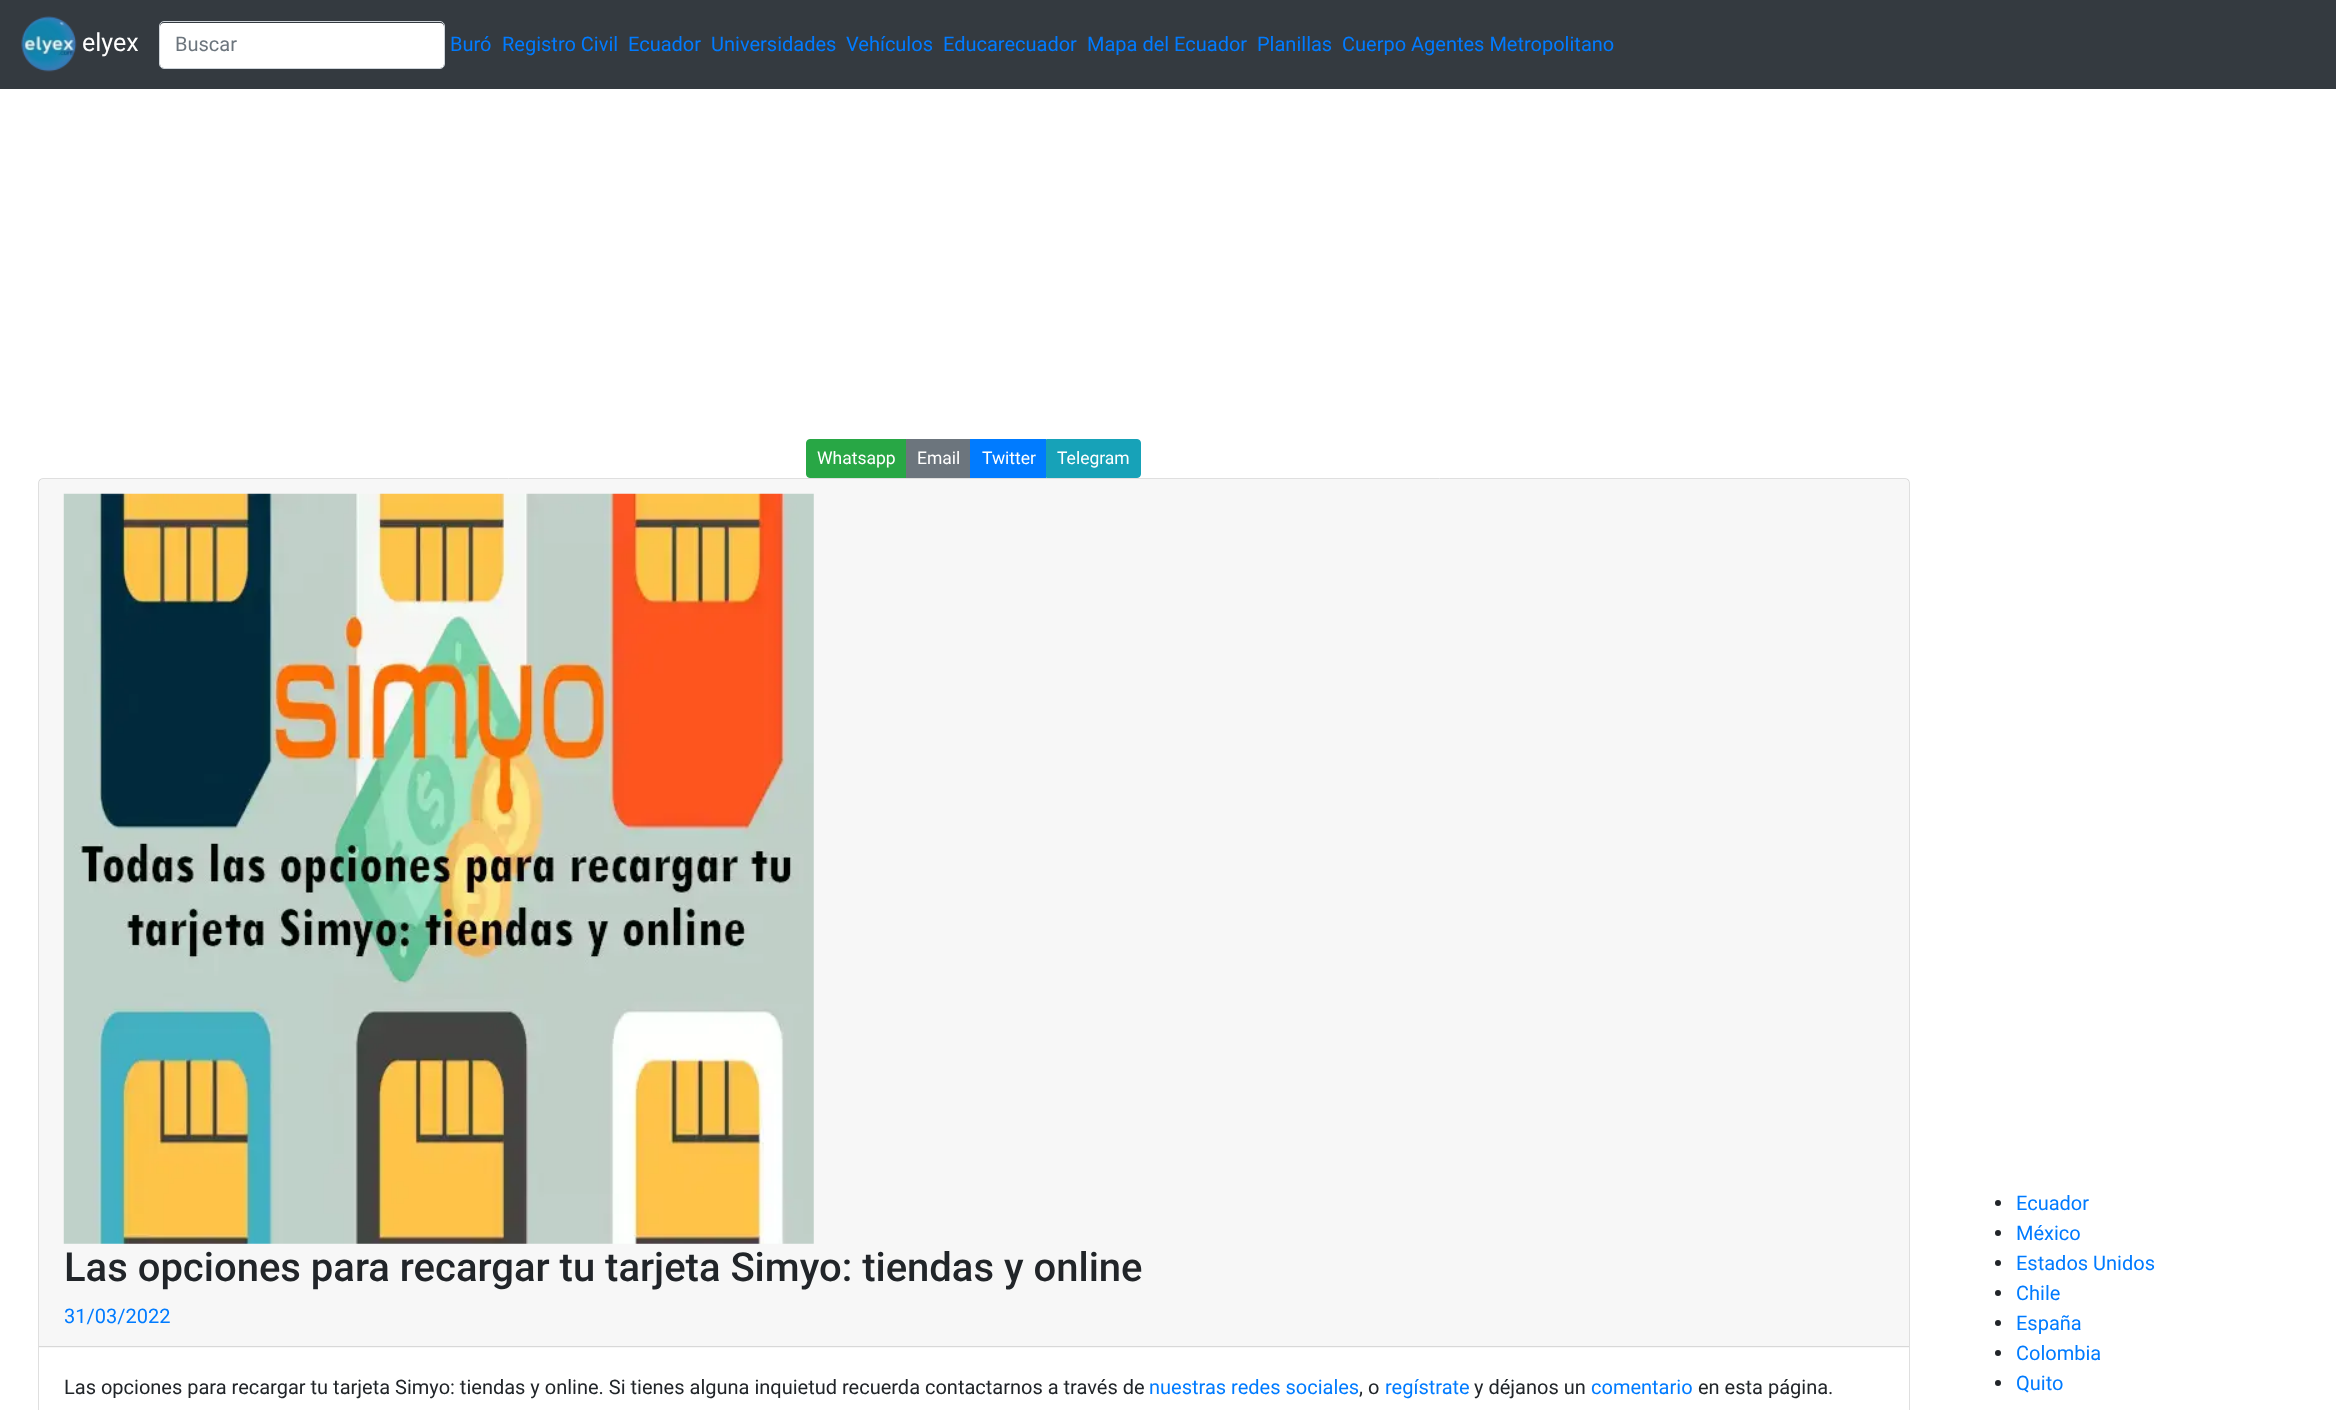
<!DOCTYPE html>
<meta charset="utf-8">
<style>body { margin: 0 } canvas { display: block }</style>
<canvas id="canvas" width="2336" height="1410"></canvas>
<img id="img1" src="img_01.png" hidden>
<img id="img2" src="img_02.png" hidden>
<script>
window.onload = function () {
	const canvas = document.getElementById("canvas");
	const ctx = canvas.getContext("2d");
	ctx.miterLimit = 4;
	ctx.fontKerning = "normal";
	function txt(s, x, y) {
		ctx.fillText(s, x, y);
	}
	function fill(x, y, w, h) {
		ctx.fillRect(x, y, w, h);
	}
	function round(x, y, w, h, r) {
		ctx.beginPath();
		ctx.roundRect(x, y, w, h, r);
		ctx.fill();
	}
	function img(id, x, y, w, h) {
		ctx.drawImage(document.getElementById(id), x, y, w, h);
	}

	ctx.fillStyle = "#FFFFFF";
	fill(0, 0, 2336, 1410);
	ctx.fillStyle = "#343A40";
	fill(0, 0, 2336, 89);
	img("img1", 21, 16, 56, 56);
	ctx.fillStyle = "#FFFFFF";
	round(160, 23, 284, 45, 4);
	ctx.beginPath();
	ctx.roundRect(159.5, 21.5, 285, 47, 4.5);
	ctx.strokeStyle = "#CED4DA";
	ctx.stroke();
	ctx.fillStyle = "#28A745";
	ctx.beginPath();
	ctx.roundRect(806.5, 439.5, 101, 38, [3.5, 0, 0, 3.5]);
	ctx.fill();
	ctx.strokeStyle = "#28A745";
	ctx.stroke();
	ctx.fillStyle = "#6C757D";
	fill(906, 439, 64, 39);
	ctx.fillStyle = "#007BFF";
	fill(970, 439, 76, 39);
	ctx.fillStyle = "#17A2B8";
	ctx.beginPath();
	ctx.roundRect(1046.5, 439.5, 94, 38, [0, 3.5, 3.5, 0]);
	ctx.fill();
	ctx.strokeStyle = "#17A2B8";
	ctx.stroke();
	ctx.beginPath();
	ctx.roundRect(38.5, 478.5, 1871, 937, 4.5);
	ctx.strokeStyle = "#DFDFDF";
	ctx.stroke();
	ctx.fillStyle = "rgba(0, 0, 0, 0.03)";
	fill(39, 479, 1870, 869);
	ctx.fillStyle = "#D8D8D8";
	fill(39, 1346, 1870, 1);
	img("img2", 63, 493, 751, 751);
	ctx.fillStyle = "#212529";
	ctx.beginPath();
	ctx.arc(1998, 1203, 3, 0, Math.PI * 2);
	ctx.fill();
	ctx.beginPath();
	ctx.arc(1998, 1233, 3, 0, Math.PI * 2);
	ctx.fill();
	ctx.beginPath();
	ctx.arc(1998, 1263, 3, 0, Math.PI * 2);
	ctx.fill();
	ctx.beginPath();
	ctx.arc(1998, 1293, 3, 0, Math.PI * 2);
	ctx.fill();
	ctx.beginPath();
	ctx.arc(1998, 1323, 3, 0, Math.PI * 2);
	ctx.fill();
	ctx.beginPath();
	ctx.arc(1998, 1353, 3, 0, Math.PI * 2);
	ctx.fill();
	ctx.beginPath();
	ctx.arc(1998, 1383, 3, 0, Math.PI * 2);
	ctx.fill();
	ctx.font = "25px Roboto";
	ctx.fillStyle = "#FFFFFF";
	txt("elyex", 82, 51);
	ctx.font = "20px Roboto";
	ctx.fillStyle = "#6C757D";
	txt("Buscar", 175, 51);
	ctx.fillStyle = "#007BFF";
	txt("Buró", 450, 51);
	txt("Registro Civil", 502, 51);
	txt("Ecuador", 628, 51);
	txt("Universidades", 711, 51);
	txt("Vehículos", 846, 51);
	txt("Educarecuador", 943, 51);
	txt("Mapa del Ecuador", 1087, 51);
	txt("Planillas", 1257, 51);
	txt("Cuerpo Agentes Metropolitano", 1342, 51);
	ctx.font = "17.5px Roboto";
	ctx.fillStyle = "#FFFFFF";
	txt("Whatsapp", 817, 464);
	txt("Email", 917, 464);
	txt("Twitter", 982, 464);
	txt("Telegram", 1057, 464);
	ctx.font = "500 40px Roboto";
	ctx.fillStyle = "#212529";
	txt("Las opciones para recargar tu tarjeta Simyo: tiendas y online", 64, 1281);
	ctx.font = "20px Roboto";
	ctx.fillStyle = "#007BFF";
	txt("31/03/2022", 64, 1323);
	ctx.fillStyle = "#212529";
	txt("Las opciones para recargar tu tarjeta Simyo: tiendas y online. Si tienes alguna inquietud recuerda contactarnos a través de", 64, 1394);
	ctx.fillStyle = "#007BFF";
	txt("nuestras redes sociales", 1149, 1394);
	ctx.fillStyle = "#212529";
	txt(", o", 1359, 1394);
	ctx.fillStyle = "#007BFF";
	txt("regístrate", 1385, 1394);
	ctx.fillStyle = "#212529";
	txt("y déjanos un", 1474, 1394);
	ctx.fillStyle = "#007BFF";
	txt("comentario", 1591, 1394);
	ctx.fillStyle = "#212529";
	txt("en esta página.", 1698, 1394);
	ctx.fillStyle = "#007BFF";
	txt("Ecuador", 2016, 1210);
	txt("México", 2016, 1240);
	txt("Estados Unidos", 2016, 1270);
	txt("Chile", 2016, 1300);
	txt("España", 2016, 1330);
	txt("Colombia", 2016, 1360);
	txt("Quito", 2016, 1390);
};
</script>
